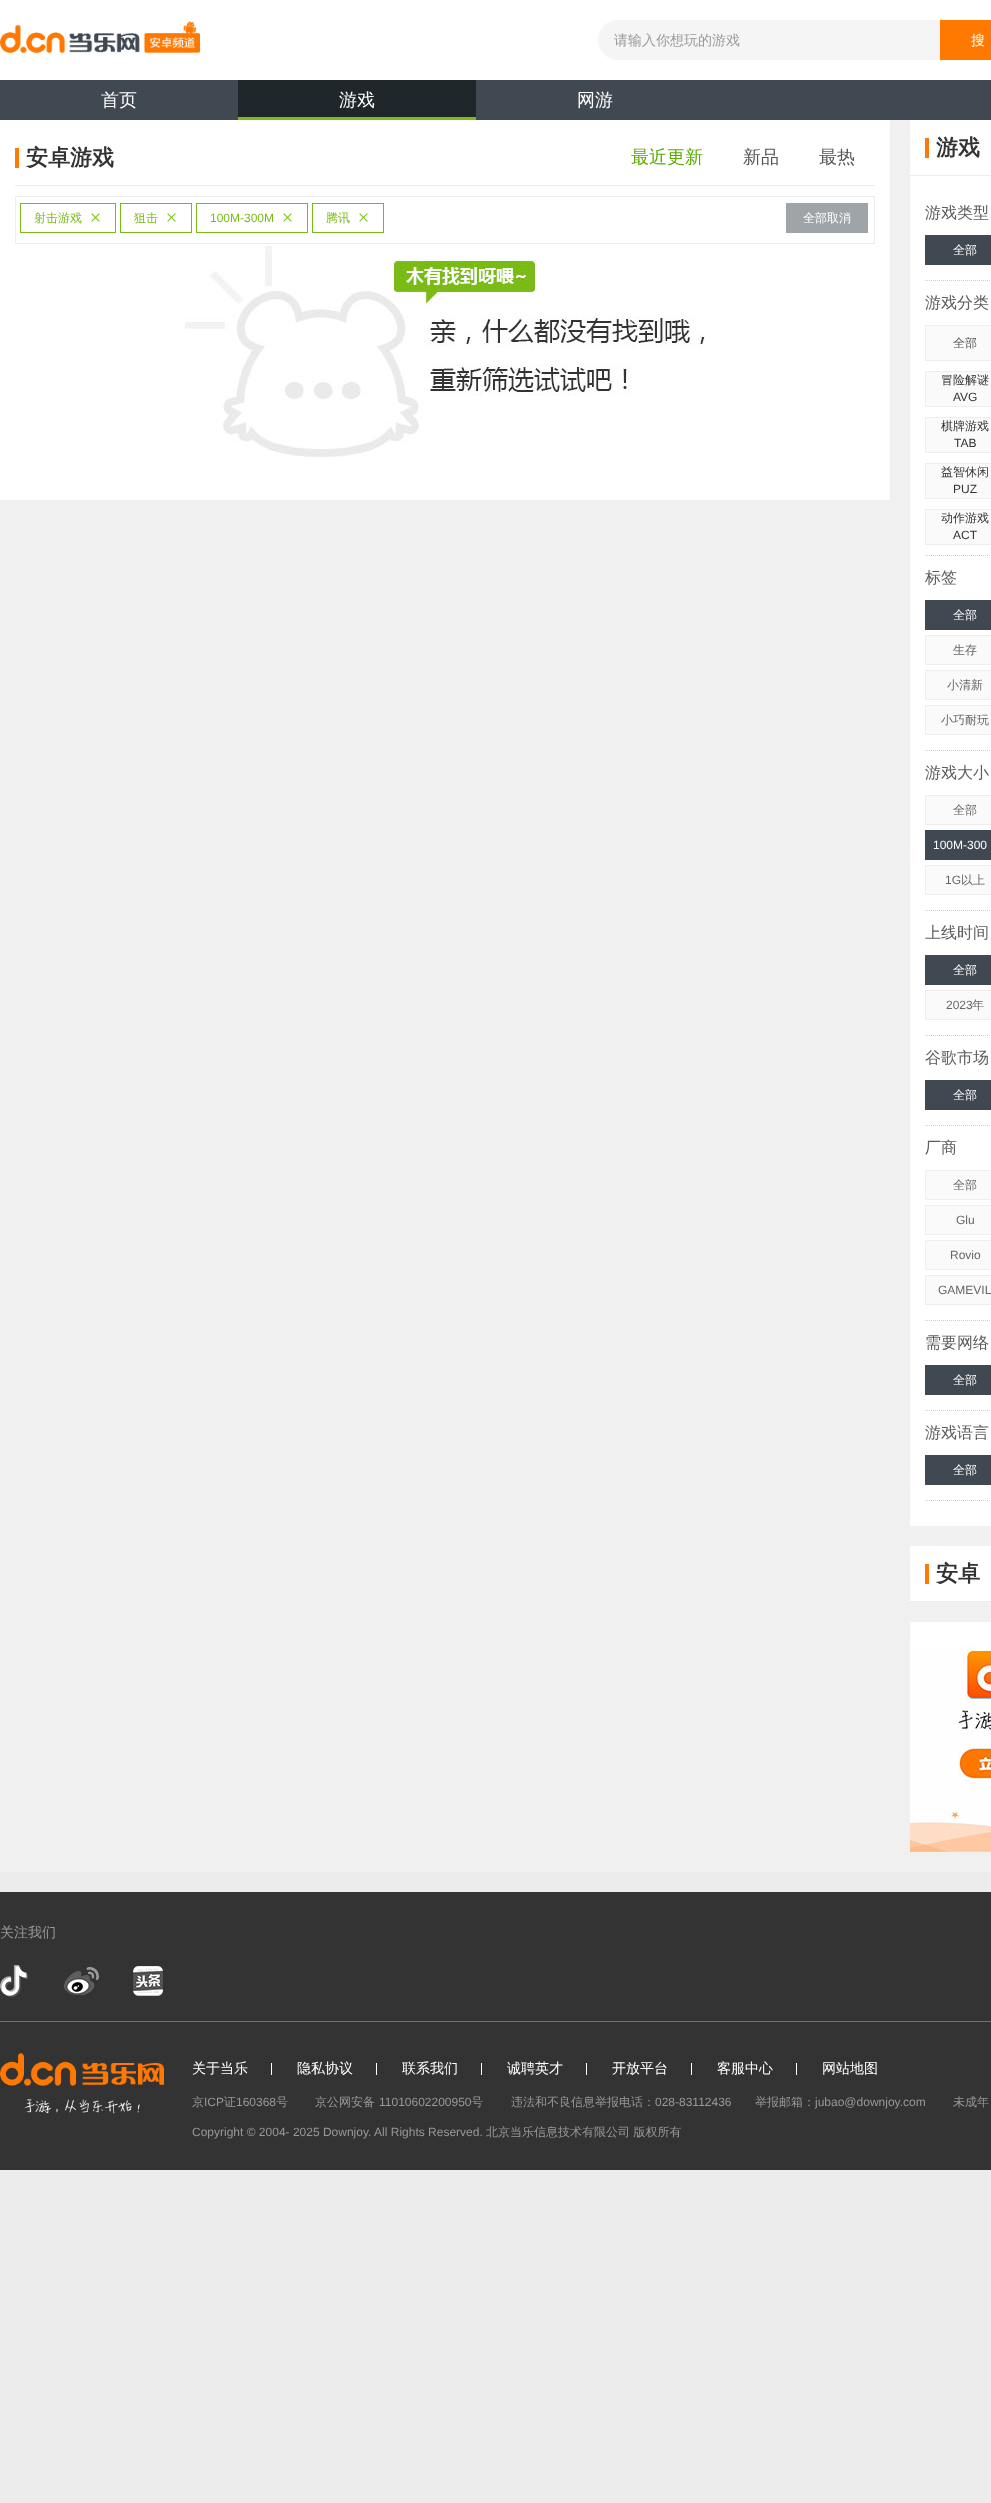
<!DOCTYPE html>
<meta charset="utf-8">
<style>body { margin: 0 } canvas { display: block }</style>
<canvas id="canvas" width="991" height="2503"></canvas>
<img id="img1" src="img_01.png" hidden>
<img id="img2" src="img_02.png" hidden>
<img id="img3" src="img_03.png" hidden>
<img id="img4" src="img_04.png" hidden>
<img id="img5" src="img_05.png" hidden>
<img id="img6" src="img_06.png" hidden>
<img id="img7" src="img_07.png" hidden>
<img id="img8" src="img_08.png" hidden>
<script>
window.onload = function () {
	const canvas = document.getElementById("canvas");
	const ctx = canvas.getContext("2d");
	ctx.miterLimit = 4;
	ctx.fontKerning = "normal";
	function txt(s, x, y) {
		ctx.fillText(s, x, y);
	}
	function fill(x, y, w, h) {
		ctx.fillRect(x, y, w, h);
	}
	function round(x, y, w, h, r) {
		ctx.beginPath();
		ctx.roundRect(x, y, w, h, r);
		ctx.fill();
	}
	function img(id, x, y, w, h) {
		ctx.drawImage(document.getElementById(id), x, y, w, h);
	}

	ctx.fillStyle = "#ECECEC";
	fill(0, 0, 991, 2503);
	ctx.fillStyle = "#FFFFFF";
	fill(0, 0, 991, 80);
	img("img1", 0, 20, 200, 33);
	ctx.fillStyle = "#F5F5F5";
	round(598, 20, 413, 40, 20);
	ctx.fillStyle = "#FF7900";
	fill(940, 20, 51, 40);
	ctx.fillStyle = "#404952";
	fill(0, 80, 991, 40);
	ctx.fillStyle = "#1F272B";
	fill(238, 80, 238, 37);
	ctx.fillStyle = "#7ABB15";
	fill(238, 117, 238, 3);
	ctx.fillStyle = "#F0F0F0";
	fill(0, 120, 991, 1752);
	ctx.fillStyle = "#FFFFFF";
	fill(0, 120, 890, 380);
	ctx.fillStyle = "#ECECEC";
	fill(15, 185, 860, 1);
	ctx.fillStyle = "#FF7800";
	fill(15, 148, 4, 20);
	ctx.strokeStyle = "#ECECEC";
	ctx.strokeRect(15.5, 196.5, 859, 47);
	ctx.strokeStyle = "#7ABB15";
	ctx.strokeRect(20.5, 203.5, 95, 29);
	img("img2", 91, 213, 9, 9);
	ctx.strokeRect(120.5, 203.5, 71, 29);
	img("img2", 167, 213, 9, 9);
	ctx.strokeRect(196.5, 203.5, 111, 29);
	img("img2", 283, 213, 9, 9);
	ctx.strokeRect(312.5, 203.5, 71, 29);
	img("img2", 359, 213, 9, 9);
	ctx.fillStyle = "#9FA4A8";
	fill(786, 203, 82, 30);
	img("img3", 184, 246, 521, 211);
	ctx.fillStyle = "#FFFFFF";
	fill(910, 120, 81, 1406);
	ctx.fillStyle = "#ECECEC";
	fill(910, 175, 81, 1);
	ctx.fillStyle = "#FF7800";
	fill(925, 138, 4, 20);
	ctx.beginPath();
	ctx.moveTo(925, 280.5);
	ctx.lineTo(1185, 280.5);
	ctx.strokeStyle = "#CECECE";
	ctx.setLineDash([1, 1]);
	ctx.stroke();
	ctx.fillStyle = "#404952";
	fill(925, 235, 66, 30);
	ctx.beginPath();
	ctx.moveTo(925, 555.5);
	ctx.lineTo(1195, 555.5);
	ctx.stroke();
	ctx.fillStyle = "#FAFAFA";
	ctx.beginPath();
	ctx.rect(925.5, 325.5, 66, 35);
	ctx.fill();
	ctx.strokeStyle = "#EEEEEE";
	ctx.setLineDash([]);
	ctx.stroke();
	ctx.beginPath();
	ctx.rect(925.5, 371.5, 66, 35);
	ctx.fill();
	ctx.stroke();
	ctx.beginPath();
	ctx.rect(925.5, 417.5, 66, 35);
	ctx.fill();
	ctx.stroke();
	ctx.beginPath();
	ctx.rect(925.5, 463.5, 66, 35);
	ctx.fill();
	ctx.stroke();
	ctx.beginPath();
	ctx.rect(925.5, 509.5, 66, 35);
	ctx.fill();
	ctx.stroke();
	ctx.beginPath();
	ctx.moveTo(925, 750.5);
	ctx.lineTo(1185, 750.5);
	ctx.strokeStyle = "#CECECE";
	ctx.setLineDash([1, 1]);
	ctx.stroke();
	ctx.fillStyle = "#404952";
	fill(925, 600, 66, 30);
	ctx.fillStyle = "#FAFAFA";
	ctx.beginPath();
	ctx.rect(925.5, 635.5, 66, 29);
	ctx.fill();
	ctx.strokeStyle = "#EEEEEE";
	ctx.setLineDash([]);
	ctx.stroke();
	ctx.beginPath();
	ctx.rect(925.5, 670.5, 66, 29);
	ctx.fill();
	ctx.stroke();
	ctx.beginPath();
	ctx.rect(925.5, 705.5, 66, 29);
	ctx.fill();
	ctx.stroke();
	ctx.beginPath();
	ctx.moveTo(925, 910.5);
	ctx.lineTo(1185, 910.5);
	ctx.strokeStyle = "#CECECE";
	ctx.setLineDash([1, 1]);
	ctx.stroke();
	ctx.beginPath();
	ctx.rect(925.5, 795.5, 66, 29);
	ctx.fill();
	ctx.strokeStyle = "#EEEEEE";
	ctx.setLineDash([]);
	ctx.stroke();
	ctx.fillStyle = "#404952";
	fill(925, 830, 66, 30);
	ctx.fillStyle = "#FAFAFA";
	ctx.beginPath();
	ctx.rect(925.5, 865.5, 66, 29);
	ctx.fill();
	ctx.stroke();
	ctx.beginPath();
	ctx.moveTo(925, 1035.5);
	ctx.lineTo(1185, 1035.5);
	ctx.strokeStyle = "#CECECE";
	ctx.setLineDash([1, 1]);
	ctx.stroke();
	ctx.fillStyle = "#404952";
	fill(925, 955, 66, 30);
	ctx.fillStyle = "#FAFAFA";
	ctx.beginPath();
	ctx.rect(925.5, 990.5, 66, 29);
	ctx.fill();
	ctx.strokeStyle = "#EEEEEE";
	ctx.setLineDash([]);
	ctx.stroke();
	ctx.beginPath();
	ctx.moveTo(925, 1125.5);
	ctx.lineTo(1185, 1125.5);
	ctx.strokeStyle = "#CECECE";
	ctx.setLineDash([1, 1]);
	ctx.stroke();
	ctx.fillStyle = "#404952";
	fill(925, 1080, 66, 30);
	ctx.beginPath();
	ctx.moveTo(925, 1320.5);
	ctx.lineTo(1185, 1320.5);
	ctx.stroke();
	ctx.fillStyle = "#FAFAFA";
	ctx.beginPath();
	ctx.rect(925.5, 1170.5, 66, 29);
	ctx.fill();
	ctx.strokeStyle = "#EEEEEE";
	ctx.setLineDash([]);
	ctx.stroke();
	ctx.beginPath();
	ctx.rect(925.5, 1205.5, 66, 29);
	ctx.fill();
	ctx.stroke();
	ctx.beginPath();
	ctx.rect(925.5, 1240.5, 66, 29);
	ctx.fill();
	ctx.stroke();
	ctx.beginPath();
	ctx.rect(925.5, 1275.5, 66, 29);
	ctx.fill();
	ctx.stroke();
	ctx.beginPath();
	ctx.moveTo(925, 1410.5);
	ctx.lineTo(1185, 1410.5);
	ctx.strokeStyle = "#CECECE";
	ctx.setLineDash([1, 1]);
	ctx.stroke();
	ctx.fillStyle = "#404952";
	fill(925, 1365, 66, 30);
	ctx.beginPath();
	ctx.moveTo(925, 1500.5);
	ctx.lineTo(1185, 1500.5);
	ctx.stroke();
	fill(925, 1455, 66, 30);
	ctx.fillStyle = "#FFFFFF";
	fill(910, 1546, 81, 55);
	ctx.fillStyle = "#ECECEC";
	fill(910, 1601, 81, 1);
	ctx.fillStyle = "#FF7800";
	fill(925, 1564, 4, 20);
	ctx.fillStyle = "#FFFFFF";
	fill(910, 1622, 81, 24);
	img("img4", 910, 1646, 81, 206);
	ctx.fillStyle = "#333333";
	fill(0, 1892, 991, 278);
	img("img5", 0, 1965, 28, 32);
	img("img6", 64, 1967, 35, 28);
	img("img7", 133, 1966, 30, 30);
	ctx.fillStyle = "#707070";
	fill(0, 2021, 991, 1);
	img("img8", 0, 2053, 164, 61);
	ctx.fillStyle = "#FFFFFF";
	fill(271, 2063, 1, 12);
	fill(376, 2063, 1, 12);
	fill(481, 2063, 1, 12);
	fill(586, 2063, 1, 12);
	fill(691, 2063, 1, 12);
	fill(796, 2063, 1, 12);
	ctx.font = "500 14px WenQuanYi Zen Hei";
	ctx.fillStyle = "#999999";
	txt("请输入你想玩的游戏", 614, 45);
	ctx.fillStyle = "#FFFFFF";
	txt("搜", 971, 45);
	ctx.font = "500 18px WenQuanYi Zen Hei";
	txt("首页", 101, 106);
	txt("游戏", 339, 106);
	txt("网游", 577, 106);
	ctx.font = "bold 22px WenQuanYi Zen Hei";
	ctx.fillStyle = "#333333";
	txt("安卓游戏", 26, 165);
	ctx.font = "500 18px WenQuanYi Zen Hei";
	ctx.fillStyle = "#59AD00";
	txt("最近更新", 631, 163);
	ctx.fillStyle = "#555555";
	txt("新品", 743, 163);
	txt("最热", 819, 163);
	ctx.font = "500 12px WenQuanYi Zen Hei";
	ctx.fillStyle = "#7ABB15";
	txt("射击游戏", 34, 222);
	txt("狙击", 134, 222);
	ctx.font = "12px Liberation Sans";
	txt("100M-300M", 210, 222);
	ctx.font = "500 12px WenQuanYi Zen Hei";
	txt("腾讯", 326, 222);
	ctx.fillStyle = "#FFFFFF";
	txt("全部取消", 803, 222);
	ctx.font = "bold 22px WenQuanYi Zen Hei";
	ctx.fillStyle = "#333333";
	txt("游戏", 936, 155);
	ctx.font = "500 16px WenQuanYi Zen Hei";
	ctx.fillStyle = "#5C5C5C";
	txt("游戏类型", 925, 218);
	ctx.font = "500 12px WenQuanYi Zen Hei";
	ctx.fillStyle = "#FFFFFF";
	txt("全部", 953, 254);
	ctx.font = "500 16px WenQuanYi Zen Hei";
	ctx.fillStyle = "#5C5C5C";
	txt("游戏分类", 925, 308);
	ctx.font = "500 12px WenQuanYi Zen Hei";
	ctx.fillStyle = "#555555";
	txt("全部", 953, 347);
	ctx.fillStyle = "#333333";
	txt("冒险解谜", 941, 384);
	ctx.font = "12px Liberation Sans";
	txt("AVG", 953, 401);
	ctx.font = "500 12px WenQuanYi Zen Hei";
	txt("棋牌游戏", 941, 430);
	ctx.font = "12px Liberation Sans";
	txt("TAB", 954, 447);
	ctx.font = "500 12px WenQuanYi Zen Hei";
	txt("益智休闲", 941, 476);
	ctx.font = "12px Liberation Sans";
	txt("PUZ", 953, 493);
	ctx.font = "500 12px WenQuanYi Zen Hei";
	txt("动作游戏", 941, 522);
	ctx.font = "12px Liberation Sans";
	txt("ACT", 953, 539);
	ctx.font = "500 16px WenQuanYi Zen Hei";
	ctx.fillStyle = "#5C5C5C";
	txt("标签", 925, 583);
	ctx.font = "500 12px WenQuanYi Zen Hei";
	ctx.fillStyle = "#FFFFFF";
	txt("全部", 953, 619);
	ctx.fillStyle = "#666666";
	txt("生存", 953, 654);
	txt("小清新", 947, 689);
	txt("小巧耐玩", 941, 724);
	ctx.font = "500 16px WenQuanYi Zen Hei";
	ctx.fillStyle = "#5C5C5C";
	txt("游戏大小", 925, 778);
	ctx.font = "500 12px WenQuanYi Zen Hei";
	ctx.fillStyle = "#666666";
	txt("全部", 953, 814);
	ctx.font = "12px Liberation Sans";
	ctx.fillStyle = "#FFFFFF";
	txt("100M-300", 933, 849);
	ctx.fillStyle = "#666666";
	txt("1G", 945, 884);
	ctx.font = "500 12px WenQuanYi Zen Hei";
	txt("以上", 961, 884);
	ctx.font = "500 16px WenQuanYi Zen Hei";
	ctx.fillStyle = "#5C5C5C";
	txt("上线时间", 925, 938);
	ctx.font = "500 12px WenQuanYi Zen Hei";
	ctx.fillStyle = "#FFFFFF";
	txt("全部", 953, 974);
	ctx.font = "12px Liberation Sans";
	ctx.fillStyle = "#666666";
	txt("2023", 946, 1009);
	ctx.font = "500 12px WenQuanYi Zen Hei";
	txt("年", 972, 1009);
	ctx.font = "500 16px WenQuanYi Zen Hei";
	ctx.fillStyle = "#5C5C5C";
	txt("谷歌市场", 925, 1063);
	ctx.font = "500 12px WenQuanYi Zen Hei";
	ctx.fillStyle = "#FFFFFF";
	txt("全部", 953, 1099);
	ctx.font = "500 16px WenQuanYi Zen Hei";
	ctx.fillStyle = "#5C5C5C";
	txt("厂商", 925, 1153);
	ctx.font = "500 12px WenQuanYi Zen Hei";
	ctx.fillStyle = "#666666";
	txt("全部", 953, 1189);
	ctx.font = "12px Liberation Sans";
	txt("Glu", 956, 1224);
	txt("Rovio", 950, 1259);
	txt("GAMEVIL", 938, 1294);
	ctx.font = "500 16px WenQuanYi Zen Hei";
	ctx.fillStyle = "#5C5C5C";
	txt("需要网络", 925, 1348);
	ctx.font = "500 12px WenQuanYi Zen Hei";
	ctx.fillStyle = "#FFFFFF";
	txt("全部", 953, 1384);
	ctx.font = "500 16px WenQuanYi Zen Hei";
	ctx.fillStyle = "#5C5C5C";
	txt("游戏语言", 925, 1438);
	ctx.font = "500 12px WenQuanYi Zen Hei";
	ctx.fillStyle = "#FFFFFF";
	txt("全部", 953, 1474);
	ctx.font = "bold 22px WenQuanYi Zen Hei";
	ctx.fillStyle = "#333333";
	txt("安卓", 936, 1581);
	ctx.font = "500 14px WenQuanYi Zen Hei";
	ctx.fillStyle = "#999999";
	txt("关注我们", 0, 1937);
	ctx.fillStyle = "#FFFFFF";
	txt("关于当乐", 192, 2073);
	txt("隐私协议", 297, 2073);
	txt("联系我们", 402, 2073);
	txt("诚聘英才", 507, 2073);
	txt("开放平台", 612, 2073);
	txt("客服中心", 717, 2073);
	txt("网站地图", 822, 2073);
	ctx.font = "500 12px WenQuanYi Zen Hei";
	ctx.fillStyle = "#999999";
	txt("京", 192, 2106);
	ctx.font = "12px Liberation Sans";
	txt("ICP", 204, 2106);
	ctx.font = "500 12px WenQuanYi Zen Hei";
	txt("证", 224, 2106);
	ctx.font = "12px Liberation Sans";
	txt("160368", 236, 2106);
	ctx.font = "500 12px WenQuanYi Zen Hei";
	txt("号", 276, 2106);
	txt("京公网安备", 315, 2106);
	ctx.font = "12px Liberation Sans";
	txt("11010602200950", 379, 2106);
	ctx.font = "500 12px WenQuanYi Zen Hei";
	txt("号", 471, 2106);
	txt("违法和不良信息举报电话：", 511, 2106);
	ctx.font = "12px Liberation Sans";
	txt("028-83112436", 655, 2106);
	ctx.font = "500 12px WenQuanYi Zen Hei";
	txt("举报邮箱：", 755, 2106);
	ctx.font = "12px Liberation Sans";
	txt("jubao@downjoy.com", 815, 2106);
	ctx.font = "500 12px WenQuanYi Zen Hei";
	txt("未成年", 953, 2106);
	ctx.font = "12px Liberation Sans";
	txt("Copyright © 2004- 2025 Downjoy. All Rights Reserved.", 192, 2136);
	ctx.font = "500 12px WenQuanYi Zen Hei";
	txt("北京当乐信息技术有限公司 版权所有", 486, 2136);
};
</script>
